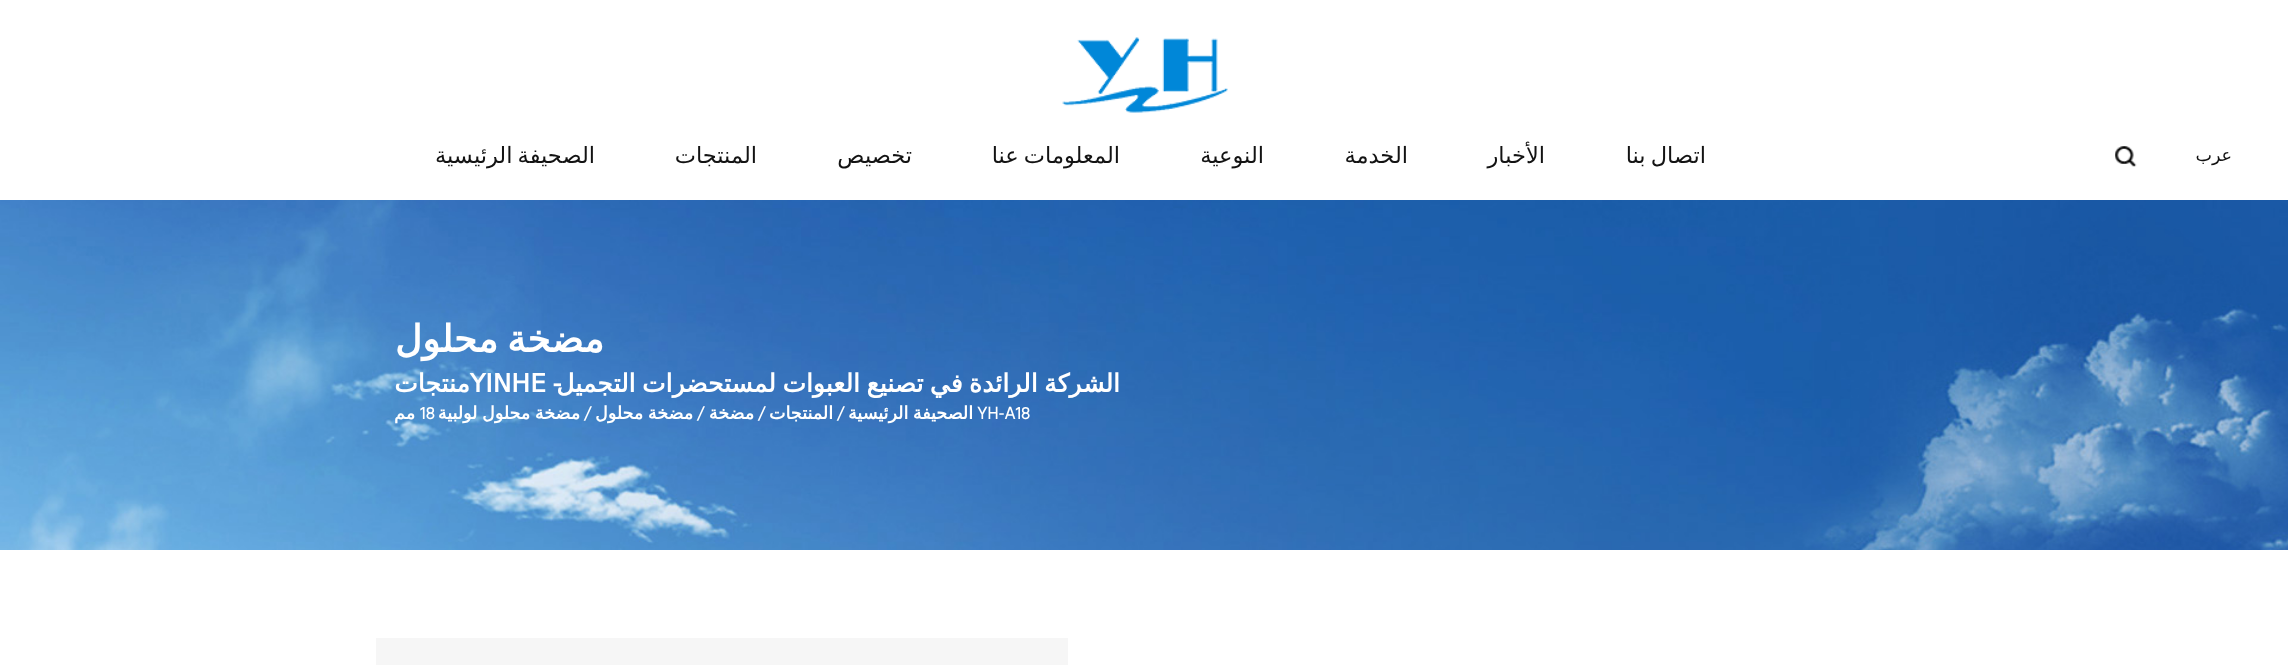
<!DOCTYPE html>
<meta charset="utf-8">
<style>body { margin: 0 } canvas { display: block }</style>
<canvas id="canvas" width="2288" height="665"></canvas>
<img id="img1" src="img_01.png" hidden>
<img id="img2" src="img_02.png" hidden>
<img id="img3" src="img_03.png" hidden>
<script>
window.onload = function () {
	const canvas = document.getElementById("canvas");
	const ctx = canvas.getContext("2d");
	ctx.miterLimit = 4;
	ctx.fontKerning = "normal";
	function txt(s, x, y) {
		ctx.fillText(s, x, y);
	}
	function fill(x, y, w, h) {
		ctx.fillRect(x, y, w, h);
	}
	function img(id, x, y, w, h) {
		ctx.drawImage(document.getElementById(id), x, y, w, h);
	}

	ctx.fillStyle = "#FFFFFF";
	fill(0, 0, 2288, 665);
	img("img1", 1062, 37, 166, 76);
	img("img2", 2115, 146, 22, 21);
	img("img3", 0, 200, 2288, 350);
	ctx.fillStyle = "#F6F6F6";
	fill(376, 638, 692, 27);
	ctx.direction = "rtl";
	ctx.font = "17.5px DejaVu Sans";
	ctx.fillStyle = "#131313";
	txt("عرب", 2232, 161);
	ctx.wordSpacing = "-2px";
	ctx.font = "22.5px DejaVu Sans";
	txt("اتصال بنا", 1706, 163);
	ctx.wordSpacing = "0px";
	txt("الأخبار", 1545, 163);
	txt("الخدمة", 1408, 163);
	txt("النوعية", 1264, 163);
	ctx.wordSpacing = "-2px";
	txt("المعلومات عنا", 1120, 163);
	ctx.wordSpacing = "0px";
	txt("تخصيص", 912, 163);
	txt("المنتجات", 757, 163);
	ctx.wordSpacing = "-2px";
	txt("الصحيفة الرئيسية", 595, 163);
	ctx.wordSpacing = "-3px";
	ctx.font = "bold 37.5px DejaVu Sans";
	ctx.fillStyle = "#FFFFFF";
	txt("مضخة محلول", 604, 352);
	ctx.wordSpacing = "-1.5px";
	ctx.direction = "ltr";
	ctx.font = "bold 25px DejaVu Sans";
	txt("YINHE -", 470, 392);
	ctx.direction = "rtl";
	txt("الشركة الرائدة في تصنيع العبوات لمستحضرات التجميل", 1120, 392);
	ctx.wordSpacing = "0px";
	txt("منتجات", 470, 392);
	ctx.direction = "ltr";
	ctx.font = "bold 17.5px Hind Madurai";
	txt("YH-A18", 977, 419);
	ctx.wordSpacing = "-1px";
	ctx.direction = "rtl";
	ctx.font = "bold 17.5px DejaVu Sans";
	txt("الصحيفة الرئيسية", 973, 419);
	ctx.wordSpacing = "0px";
	ctx.direction = "ltr";
	ctx.font = "bold 17.5px Hind Madurai";
	txt("/", 837, 419);
	ctx.direction = "rtl";
	ctx.font = "bold 17.5px DejaVu Sans";
	txt("المنتجات", 833, 419);
	ctx.direction = "ltr";
	ctx.font = "bold 17.5px Hind Madurai";
	txt("/", 758, 419);
	ctx.direction = "rtl";
	ctx.font = "bold 17.5px DejaVu Sans";
	txt("مضخة", 754, 419);
	ctx.direction = "ltr";
	ctx.font = "bold 17.5px Hind Madurai";
	txt("/", 697, 419);
	ctx.wordSpacing = "-1px";
	ctx.direction = "rtl";
	ctx.font = "bold 17.5px DejaVu Sans";
	txt("مضخة محلول", 693, 419);
	ctx.wordSpacing = "0px";
	ctx.direction = "ltr";
	ctx.font = "bold 17.5px Hind Madurai";
	txt("/", 584, 419);
	ctx.wordSpacing = "-1px";
	ctx.direction = "rtl";
	ctx.font = "bold 17.5px DejaVu Sans";
	txt("مضخة محلول لولبية", 580, 419);
	ctx.wordSpacing = "0px";
	ctx.direction = "ltr";
	ctx.font = "bold 17.5px Hind Madurai";
	txt("18", 420, 419);
	ctx.direction = "rtl";
	ctx.font = "bold 17.5px DejaVu Sans";
	txt("مم", 415, 419);
};
</script>
